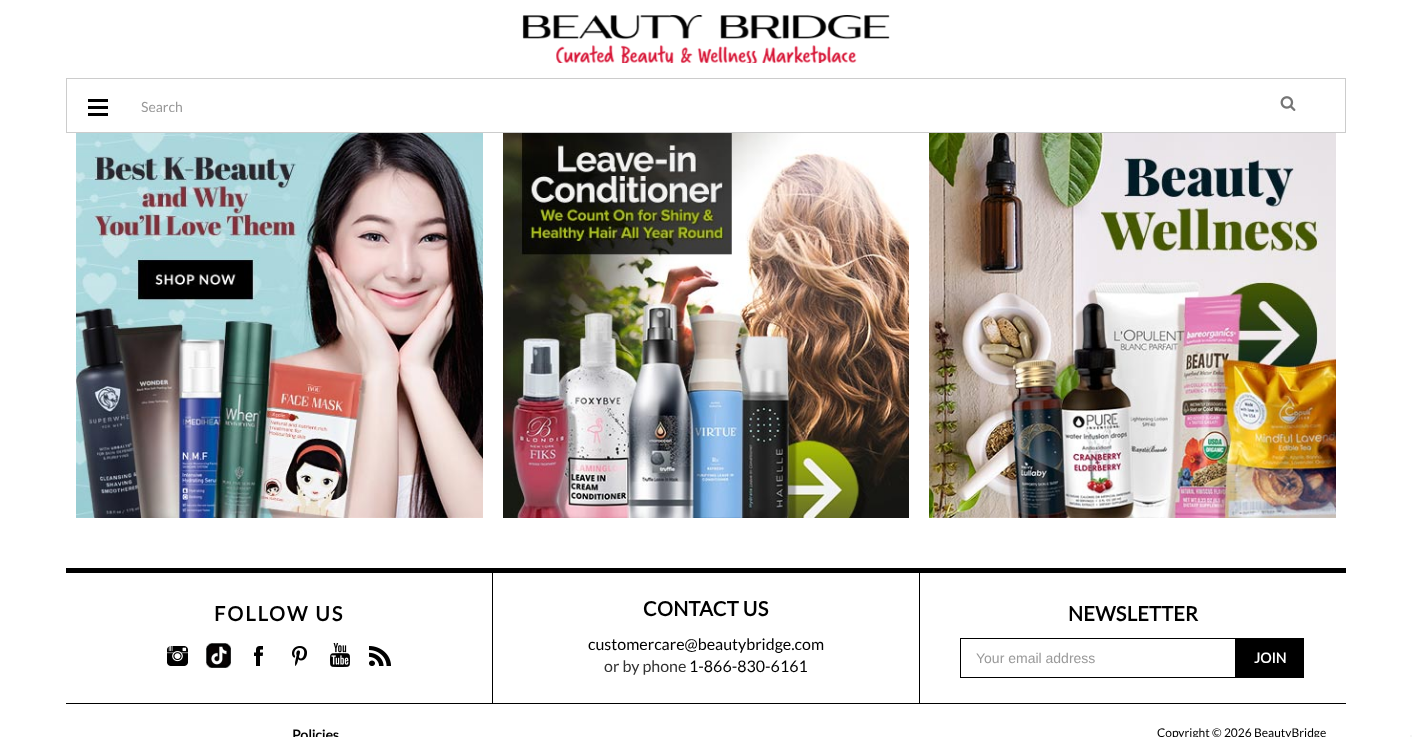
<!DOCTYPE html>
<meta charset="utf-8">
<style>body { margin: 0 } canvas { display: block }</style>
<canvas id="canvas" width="1412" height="737"></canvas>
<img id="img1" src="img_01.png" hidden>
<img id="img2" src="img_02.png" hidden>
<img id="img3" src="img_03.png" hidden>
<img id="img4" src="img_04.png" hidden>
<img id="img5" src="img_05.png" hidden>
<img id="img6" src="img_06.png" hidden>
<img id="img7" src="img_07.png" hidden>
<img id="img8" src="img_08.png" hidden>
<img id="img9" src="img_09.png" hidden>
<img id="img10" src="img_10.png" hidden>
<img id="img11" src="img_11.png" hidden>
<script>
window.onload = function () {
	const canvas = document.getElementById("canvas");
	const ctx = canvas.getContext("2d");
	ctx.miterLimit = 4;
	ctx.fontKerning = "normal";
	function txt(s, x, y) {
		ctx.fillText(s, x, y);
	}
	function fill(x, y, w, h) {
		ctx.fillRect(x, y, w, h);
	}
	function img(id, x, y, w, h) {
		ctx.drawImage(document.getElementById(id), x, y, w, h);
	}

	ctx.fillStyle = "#FFFFFF";
	fill(0, 0, 1412, 737);
	img("img1", 522, 15, 368, 48);
	ctx.strokeStyle = "#CCCCCC";
	ctx.strokeRect(66.5, 78.5, 1279, 54);
	ctx.fillStyle = "#000000";
	fill(88, 106, 20, 3);
	fill(88, 99, 20, 3);
	fill(88, 113, 20, 3);
	img("img2", 1280, 96, 16, 15);
	img("img3", 76, 133, 407, 385);
	img("img4", 503, 133, 406, 385);
	img("img5", 929, 133, 407, 385);
	fill(66, 568, 1280, 5);
	fill(66, 703, 1280, 1);
	fill(492, 573, 1, 130);
	img("img6", 167, 646, 21, 20);
	img("img7", 206, 643, 25, 25);
	img("img8", 254, 646, 9, 20);
	img("img9", 292, 646, 15, 20);
	img("img10", 330, 643, 20, 24);
	img("img11", 369, 646, 22, 20);
	fill(919, 573, 1, 130);
	ctx.strokeStyle = "#000000";
	ctx.strokeRect(960.5, 638.5, 275, 39);
	fill(1236, 638, 68, 40);
	ctx.fillStyle = "#F5F5F5";
	fill(1410, 735, 2, 2);
	ctx.font = "14px Lato";
	ctx.fillStyle = "#999999";
	txt("Search", 141, 112);
	ctx.letterSpacing = "2px";
	ctx.font = "bold 20px Lato";
	ctx.fillStyle = "#000000";
	txt("FOLLOW US", 214, 621);
	ctx.letterSpacing = "0.25px";
	txt("CONTACT US", 643, 616);
	ctx.letterSpacing = "0px";
	ctx.font = "16px Lato";
	txt("customercare@beautybridge.com", 588, 650);
	ctx.fillStyle = "#333333";
	txt("or by phone", 604, 672);
	ctx.fillStyle = "#000000";
	txt("1-866-830-6161", 689, 672);
	ctx.letterSpacing = "0.25px";
	ctx.font = "bold 20px Lato";
	txt("NEWSLETTER", 1068, 621);
	ctx.letterSpacing = "0px";
	ctx.font = "14px Liberation Sans";
	ctx.fillStyle = "#999999";
	txt("Your email address", 976, 663);
	ctx.font = "bold 14px Lato";
	ctx.fillStyle = "#FFFFFF";
	txt("JOIN", 1254, 663);
	ctx.fillStyle = "#000000";
	txt("Policies", 292, 740);
	ctx.font = "12px Lato";
	txt("Copyright © 2026 BeautyBridge", 1157, 737);
};
</script>
